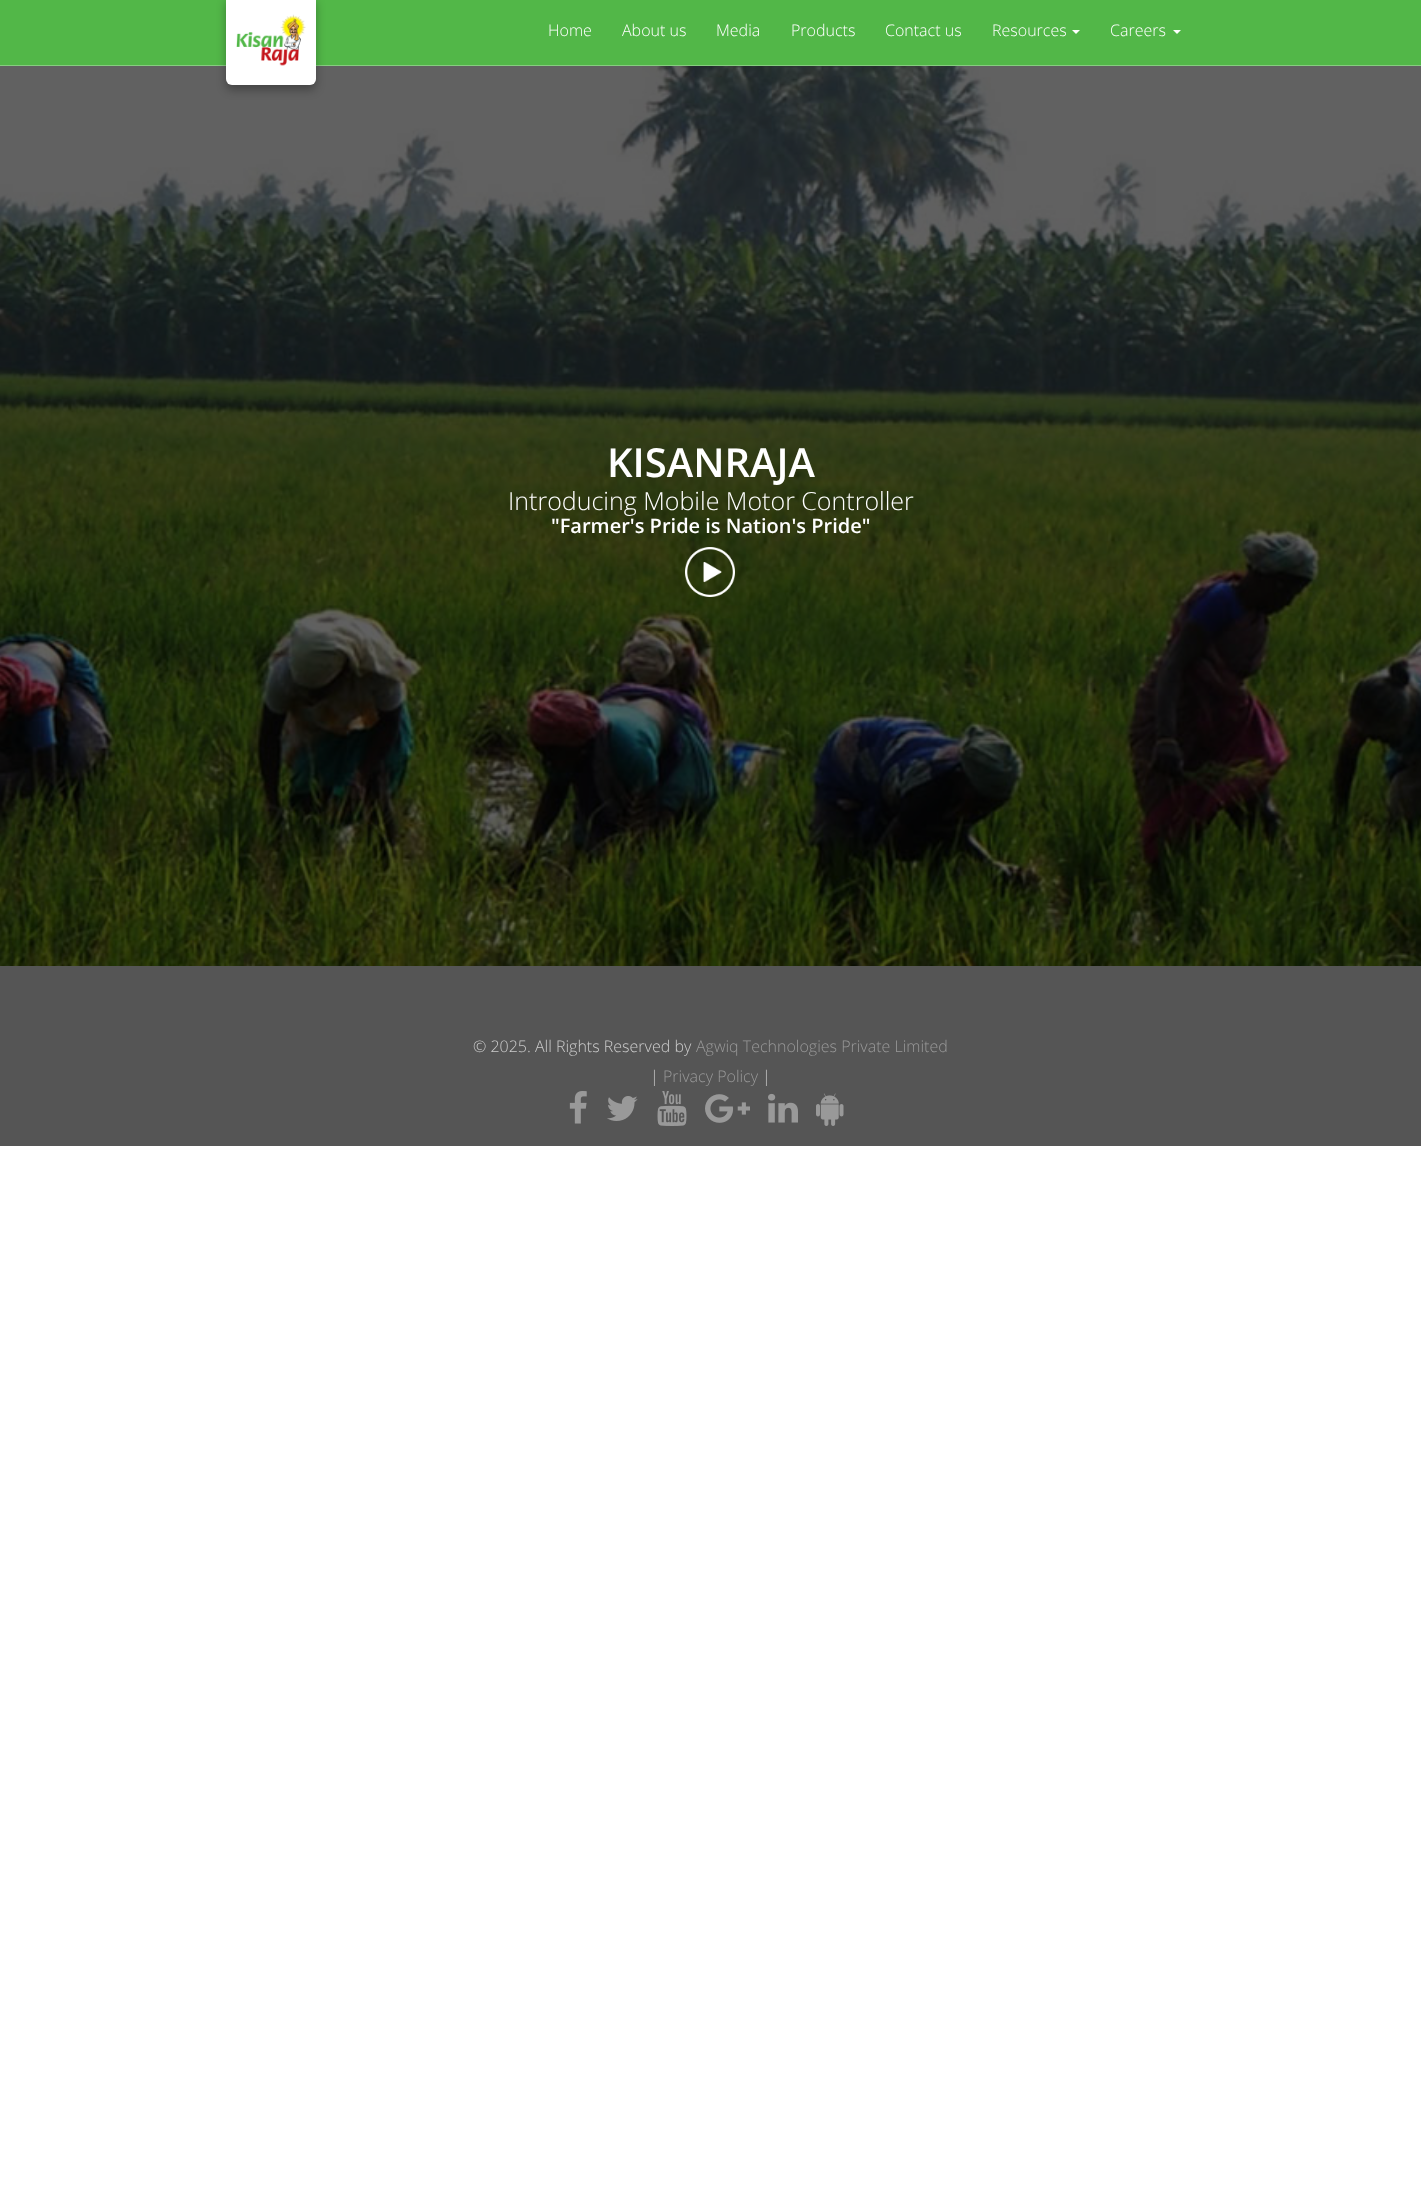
<!DOCTYPE html>
<meta charset="utf-8">
<style>body { margin: 0 } canvas { display: block }</style>
<canvas id="canvas" width="1421" height="2197"></canvas>
<img id="img1" src="img_02.png" hidden>
<img id="img2" src="img_01.png" hidden>
<img id="img3" src="img_03.png" hidden>
<img id="img4" src="img_04.png" hidden>
<img id="img5" src="img_05.png" hidden>
<img id="img6" src="img_06.png" hidden>
<img id="img7" src="img_07.png" hidden>
<img id="img8" src="img_08.png" hidden>
<img id="img9" src="img_09.png" hidden>
<script>
window.onload = function () {
	const canvas = document.getElementById("canvas");
	const ctx = canvas.getContext("2d");
	ctx.miterLimit = 4;
	ctx.fontKerning = "normal";
	function txt(s, x, y) {
		ctx.fillText(s, x, y);
	}
	function fill(x, y, w, h) {
		ctx.fillRect(x, y, w, h);
	}
	function round(x, y, w, h, r) {
		ctx.beginPath();
		ctx.roundRect(x, y, w, h, r);
		ctx.fill();
	}
	function img(id, x, y, w, h) {
		ctx.drawImage(document.getElementById(id), x, y, w, h);
	}

	ctx.fillStyle = "#FFFFFF";
	fill(0, 0, 1421, 2197);
	ctx.fillStyle = "#52B748";
	fill(0, 0, 1421, 65);
	ctx.fillStyle = "#86CD7F";
	fill(0, 65, 1421, 1);
	img("img1", 0, 66, 1421, 900);
	ctx.fillStyle = "rgba(0, 0, 0, 0.3)";
	ctx.filter = "blur(5px)";
	ctx.beginPath();
	ctx.roundRect(226, 0, 90, 90, 6);
	ctx.fill();
	ctx.filter = "none";
	ctx.fillStyle = "#FFFFFF";
	round(226, -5, 90, 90, 6);
	img("img2", 236, 14, 70, 52);
	ctx.beginPath();
	ctx.moveTo(1072, 30);
	ctx.lineTo(1080, 30);
	ctx.lineTo(1076, 34);
	ctx.closePath();
	ctx.fill();
	ctx.beginPath();
	ctx.moveTo(1173, 30);
	ctx.lineTo(1181, 30);
	ctx.lineTo(1177, 34);
	ctx.closePath();
	ctx.fill();
	img("img3", 685, 547, 50, 50);
	ctx.fillStyle = "#555555";
	fill(0, 966, 1421, 180);
	img("img4", 569, 1091, 18, 33);
	img("img5", 607, 1096, 31, 25);
	img("img6", 657, 1091, 30, 35);
	img("img7", 705, 1094, 45, 29);
	img("img8", 768, 1093, 30, 30);
	img("img9", 816, 1093, 28, 33);
	ctx.font = "300 16px Open Sans";
	ctx.fillStyle = "#FFFFFF";
	txt("Home", 548, 36);
	txt("About us", 622, 36);
	txt("Media", 716, 36);
	txt("Products", 791, 36);
	txt("Contact us", 885, 36);
	txt("Resources", 992, 36);
	txt("Careers", 1110, 36);
	ctx.font = "600 40px Open Sans";
	txt("KISANRAJA", 607, 477);
	ctx.font = "300 25px Open Sans";
	txt("Introducing Mobile Motor Controller", 508, 510);
	ctx.font = "600 20px Open Sans";
	txt("\"Farmer's Pride is Nation's Pride\"", 551, 533);
	ctx.font = "300 16px Open Sans";
	ctx.fillStyle = "#CCCCCC";
	txt("© 2025. All Rights Reserved by", 473, 1052);
	ctx.fillStyle = "#999999";
	txt("Agwiq Technologies Private Limited", 696, 1052);
	ctx.fillStyle = "#CCCCCC";
	txt("|", 650, 1082);
	ctx.fillStyle = "#999999";
	txt("Privacy Policy", 663, 1082);
	ctx.fillStyle = "#CCCCCC";
	txt("|", 762, 1082);
};
</script>
